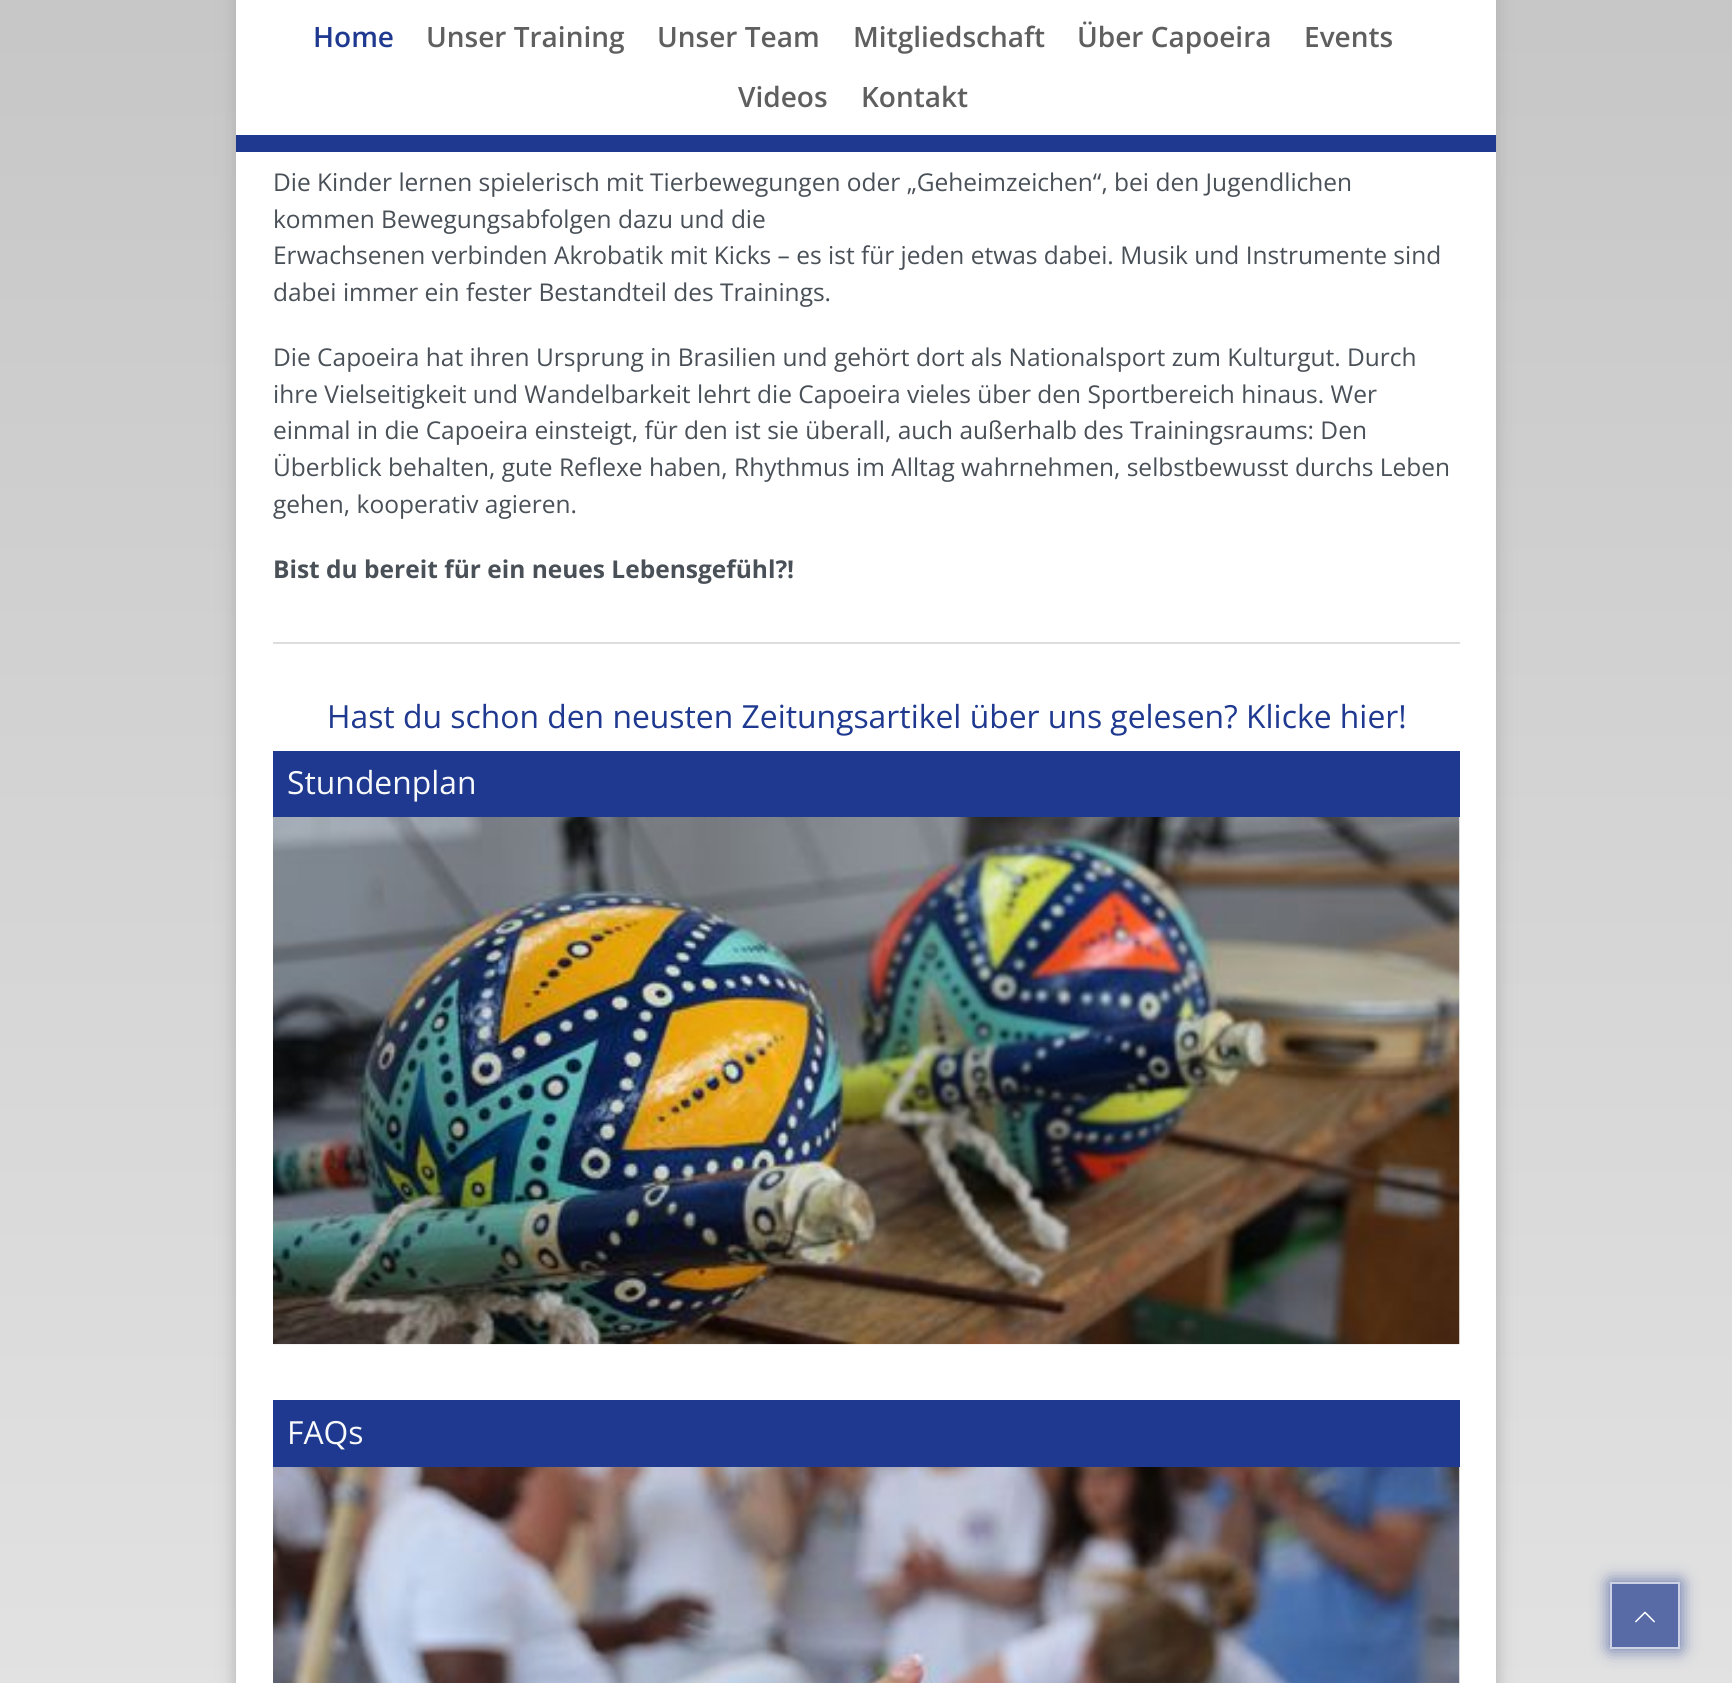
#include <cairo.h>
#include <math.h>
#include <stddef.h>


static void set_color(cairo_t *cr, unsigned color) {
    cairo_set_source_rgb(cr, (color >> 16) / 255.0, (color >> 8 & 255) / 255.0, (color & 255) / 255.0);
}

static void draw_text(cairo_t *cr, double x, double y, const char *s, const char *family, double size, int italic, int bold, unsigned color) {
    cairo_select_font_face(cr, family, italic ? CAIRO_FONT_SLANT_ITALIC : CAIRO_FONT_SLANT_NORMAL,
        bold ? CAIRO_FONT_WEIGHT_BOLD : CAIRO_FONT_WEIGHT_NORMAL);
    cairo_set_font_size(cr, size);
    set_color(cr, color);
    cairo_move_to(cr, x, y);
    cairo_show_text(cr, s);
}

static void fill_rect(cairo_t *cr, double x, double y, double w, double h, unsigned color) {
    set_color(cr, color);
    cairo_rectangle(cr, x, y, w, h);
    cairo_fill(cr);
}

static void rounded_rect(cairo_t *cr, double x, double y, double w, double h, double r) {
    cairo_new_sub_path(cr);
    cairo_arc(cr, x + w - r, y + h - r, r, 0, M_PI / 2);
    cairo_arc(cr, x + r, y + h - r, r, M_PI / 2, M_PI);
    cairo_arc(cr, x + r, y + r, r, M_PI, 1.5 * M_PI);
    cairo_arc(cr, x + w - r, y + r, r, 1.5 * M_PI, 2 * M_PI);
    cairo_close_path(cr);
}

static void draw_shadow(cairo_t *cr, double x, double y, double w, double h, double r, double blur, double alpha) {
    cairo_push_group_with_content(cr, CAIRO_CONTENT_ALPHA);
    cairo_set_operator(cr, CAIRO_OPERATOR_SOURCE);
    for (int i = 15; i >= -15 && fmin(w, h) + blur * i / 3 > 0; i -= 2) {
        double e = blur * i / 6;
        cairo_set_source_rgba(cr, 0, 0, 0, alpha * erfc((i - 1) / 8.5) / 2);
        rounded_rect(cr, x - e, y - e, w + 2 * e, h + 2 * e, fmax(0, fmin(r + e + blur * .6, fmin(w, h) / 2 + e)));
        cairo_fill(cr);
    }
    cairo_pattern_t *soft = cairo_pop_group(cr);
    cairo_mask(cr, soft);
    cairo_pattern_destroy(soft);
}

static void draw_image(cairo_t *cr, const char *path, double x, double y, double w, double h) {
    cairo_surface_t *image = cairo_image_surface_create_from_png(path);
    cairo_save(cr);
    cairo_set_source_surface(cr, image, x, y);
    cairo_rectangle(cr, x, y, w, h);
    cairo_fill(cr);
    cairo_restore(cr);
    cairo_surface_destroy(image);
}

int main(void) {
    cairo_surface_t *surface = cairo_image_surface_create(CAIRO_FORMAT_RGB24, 1732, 1683);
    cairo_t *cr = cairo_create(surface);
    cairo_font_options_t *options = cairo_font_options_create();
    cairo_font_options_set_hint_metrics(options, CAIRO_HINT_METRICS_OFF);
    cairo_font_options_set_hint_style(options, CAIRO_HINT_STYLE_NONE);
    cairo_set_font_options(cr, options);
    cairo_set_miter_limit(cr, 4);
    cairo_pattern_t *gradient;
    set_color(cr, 0xFFFFFF);
    cairo_paint(cr);
    gradient = cairo_pattern_create_linear(866, -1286, 866, 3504);
    cairo_pattern_add_color_stop_rgba(gradient, 0, 0.698, 0.698, 0.698, 1);
    cairo_pattern_add_color_stop_rgba(gradient, 1, 1, 1, 1, 1);
    cairo_set_source(cr, gradient);
    cairo_pattern_destroy(gradient);
    cairo_rectangle(cr, 0, 0, 1732, 1683);
    cairo_fill(cr);
    set_color(cr, 0xAEAEAE);
    draw_shadow(cr, 236, -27, 1260, 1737, 0, 9, 1);
    fill_rect(cr, 236, 0, 1260, 1683, 0xFFFFFF);
    draw_text(cr, 313, 47, "Home", "Open Sans SemiBold", 28, 0, 0, 0x1E398F);
    draw_text(cr, 426, 47, "Unser Training", "Open Sans SemiBold", 28, 0, 0, 0x5F5F5F);
    draw_text(cr, 657, 47, "Unser Team", "Open Sans SemiBold", 28, 0, 0, 0x5F5F5F);
    draw_text(cr, 853, 47, "Mitgliedschaft", "Open Sans SemiBold", 28, 0, 0, 0x5F5F5F);
    draw_text(cr, 1077, 47, "Über Capoeira", "Open Sans SemiBold", 28, 0, 0, 0x5F5F5F);
    draw_text(cr, 1304, 47, "Events", "Open Sans SemiBold", 28, 0, 0, 0x5F5F5F);
    draw_text(cr, 738, 107, "Videos", "Open Sans SemiBold", 28, 0, 0, 0x5F5F5F);
    draw_text(cr, 861, 107, "Kontakt", "Open Sans SemiBold", 28, 0, 0, 0x5F5F5F);
    fill_rect(cr, 236, 135, 1260, 17, 0x1E398F);
    draw_text(cr, 273, 191, "Die Kinder lernen spielerisch mit Tierbewegungen oder „Geheimzeichen“, bei den Jugendlichen", "Open Sans", 24.5, 0, 0, 0x495057);
    draw_text(cr, 273, 228, "kommen Bewegungsabfolgen dazu und die", "Open Sans", 24.5, 0, 0, 0x495057);
    draw_text(cr, 273, 264, "Erwachsenen verbinden Akrobatik mit Kicks – es ist für jeden etwas dabei. Musik und Instrumente sind", "Open Sans", 24.5, 0, 0, 0x495057);
    draw_text(cr, 273, 301, "dabei immer ein fester Bestandteil des Trainings.", "Open Sans", 24.5, 0, 0, 0x495057);
    draw_text(cr, 273, 366, "Die Capoeira hat ihren Ursprung in Brasilien und gehört dort als Nationalsport zum Kulturgut. Durch", "Open Sans", 24.5, 0, 0, 0x495057);
    draw_text(cr, 273, 403, "ihre Vielseitigkeit und Wandelbarkeit lehrt die Capoeira vieles über den Sportbereich hinaus. Wer", "Open Sans", 24.5, 0, 0, 0x495057);
    draw_text(cr, 273, 439, "einmal in die Capoeira einsteigt, für den ist sie überall, auch außerhalb des Trainingsraums: Den", "Open Sans", 24.5, 0, 0, 0x495057);
    draw_text(cr, 273, 476, "Überblick behalten, gute Reflexe haben, Rhythmus im Alltag wahrnehmen, selbstbewusst durchs Leben", "Open Sans", 24.5, 0, 0, 0x495057);
    draw_text(cr, 273, 513, "gehen, kooperativ agieren.", "Open Sans", 24.5, 0, 0, 0x495057);
    draw_text(cr, 273, 578, "Bist du bereit für ein neues Lebensgefühl?!", "Open Sans", 24.5, 0, 1, 0x495057);
    fill_rect(cr, 273, 642, 1187, 2, 0xDDDDDD);
    draw_text(cr, 327, 728, "Hast du schon den neusten Zeitungsartikel über uns gelesen? Klicke hier!", "Open Sans", 31.85, 0, 0, 0x1E398F);
    fill_rect(cr, 273, 751, 1187, 66, 0x1E398F);
    draw_text(cr, 287, 794, "Stundenplan", "Open Sans", 31.85, 0, 0, 0xF8F9FA);
    draw_image(cr, "assets/img1.png", 273, 817, 1187, 528);
    fill_rect(cr, 273, 1400, 1187, 67, 0x1E398F);
    draw_text(cr, 287, 1444, "FAQs", "Open Sans", 31.85, 0, 0, 0xF8F9FA);
    draw_image(cr, "assets/img2.png", 273, 1467, 1187, 216);
    cairo_save(cr);
    cairo_set_fill_rule(cr, CAIRO_FILL_RULE_EVEN_ODD);
    cairo_new_path(cr);
    cairo_move_to(cr, 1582, 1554);
    cairo_line_to(cr, 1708, 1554);
    cairo_line_to(cr, 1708, 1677);
    cairo_line_to(cr, 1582, 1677);
    cairo_close_path(cr);
    cairo_move_to(cr, 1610, 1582);
    cairo_line_to(cr, 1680, 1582);
    cairo_line_to(cr, 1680, 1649);
    cairo_line_to(cr, 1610, 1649);
    cairo_close_path(cr);
    cairo_clip(cr);
    set_color(cr, 0x1E398F);
    draw_shadow(cr, 1610, 1582, 70, 67, 0, 9, 0.7);
    cairo_restore(cr);
    cairo_set_source_rgba(cr, 0.118, 0.224, 0.561, 0.7);
    cairo_rectangle(cr, 1610, 1582, 70, 67);
    cairo_fill(cr);
    cairo_rectangle(cr, 1611, 1583, 68, 65);
    cairo_set_source_rgba(cr, 1, 1, 1, 0.7);
    cairo_stroke(cr);
    draw_image(cr, "assets/img3.png", 1635, 1611, 20, 12);
    cairo_surface_write_to_png(surface, "output.png");
    cairo_font_options_destroy(options);
    cairo_destroy(cr);
    cairo_surface_destroy(surface);
    return 0;
}
